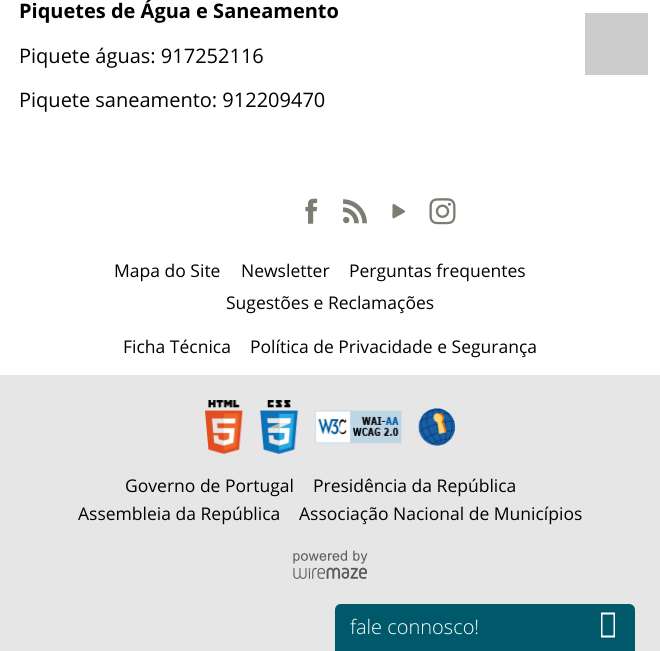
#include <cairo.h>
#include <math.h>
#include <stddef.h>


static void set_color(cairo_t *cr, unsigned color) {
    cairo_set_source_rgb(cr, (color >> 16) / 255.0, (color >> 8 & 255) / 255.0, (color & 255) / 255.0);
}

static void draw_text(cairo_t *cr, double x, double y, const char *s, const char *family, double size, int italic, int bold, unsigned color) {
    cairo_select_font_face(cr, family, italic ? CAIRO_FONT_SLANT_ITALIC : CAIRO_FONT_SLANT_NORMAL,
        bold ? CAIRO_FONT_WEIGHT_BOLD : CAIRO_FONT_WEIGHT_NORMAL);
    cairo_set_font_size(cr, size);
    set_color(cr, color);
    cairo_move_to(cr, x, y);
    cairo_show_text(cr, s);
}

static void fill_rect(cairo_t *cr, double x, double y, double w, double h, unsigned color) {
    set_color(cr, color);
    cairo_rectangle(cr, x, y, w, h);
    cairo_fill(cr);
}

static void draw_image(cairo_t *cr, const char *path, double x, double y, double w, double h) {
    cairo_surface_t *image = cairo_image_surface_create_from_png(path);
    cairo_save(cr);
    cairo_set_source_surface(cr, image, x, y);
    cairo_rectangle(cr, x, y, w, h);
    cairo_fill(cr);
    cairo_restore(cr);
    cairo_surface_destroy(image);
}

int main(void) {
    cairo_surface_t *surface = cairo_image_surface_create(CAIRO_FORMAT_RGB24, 660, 651);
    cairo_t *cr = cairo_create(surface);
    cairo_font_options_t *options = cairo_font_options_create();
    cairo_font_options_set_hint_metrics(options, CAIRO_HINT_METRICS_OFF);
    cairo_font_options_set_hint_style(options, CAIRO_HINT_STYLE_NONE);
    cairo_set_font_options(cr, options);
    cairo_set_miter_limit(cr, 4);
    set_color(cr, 0xFFFFFF);
    cairo_paint(cr);
    draw_text(cr, 19, 18, "Piquetes de Água e Saneamento", "Open Sans", 20, 0, 1, 0x000000);
    draw_text(cr, 19, 63, "Piquete águas: 917252116", "Open Sans", 20, 0, 0, 0x000000);
    draw_text(cr, 19, 107, "Piquete saneamento: 912209470", "Open Sans", 20, 0, 0, 0x000000);
    draw_image(cr, "assets/img1.png", 305, 198, 13, 26);
    draw_image(cr, "assets/img2.png", 343, 199, 24, 25);
    set_color(cr, 0x7A7D71);
    cairo_new_path(cr);
    cairo_move_to(cr, 394.5, 218);
    cairo_curve_to(cr, 391.5, 220, 392.5, 214.5, 392.5, 211);
    cairo_line_to(cr, 392.5, 207.5);
    cairo_curve_to(cr, 392.5, 206.5, 392, 203.5, 394, 204);
    cairo_line_to(cr, 404.5, 210.5);
    cairo_curve_to(cr, 405.5, 211, 405, 212, 404.5, 212.5);
    cairo_close_path(cr);
    cairo_fill(cr);
    draw_image(cr, "assets/img3.png", 429, 198, 27, 27);
    draw_text(cr, 114, 277, "Mapa do Site", "Open Sans", 17.5, 0, 0, 0x000000);
    draw_text(cr, 241, 277, "Newsletter", "Open Sans", 17.5, 0, 0, 0x000000);
    draw_text(cr, 349, 277, "Perguntas frequentes", "Open Sans", 17.5, 0, 0, 0x000000);
    draw_text(cr, 226, 309, "Sugestões e Reclamações", "Open Sans", 17.5, 0, 0, 0x000000);
    draw_text(cr, 123, 353, "Ficha Técnica", "Open Sans", 17.5, 0, 0, 0x000000);
    draw_text(cr, 250, 353, "Política de Privacidade e Segurança", "Open Sans", 17.5, 0, 0, 0x000000);
    fill_rect(cr, 0, 375, 660, 276, 0xE6E6E6);
    draw_image(cr, "assets/img4.png", 205, 400, 250, 54);
    draw_text(cr, 125, 492, "Governo de Portugal", "Open Sans", 17.5, 0, 0, 0x000000);
    draw_text(cr, 313, 492, "Presidência da República", "Open Sans", 17.5, 0, 0, 0x000000);
    draw_text(cr, 78, 520, "Assembleia da República", "Open Sans", 17.5, 0, 0, 0x000000);
    draw_text(cr, 299, 520, "Associação Nacional de Municípios", "Open Sans", 17.5, 0, 0, 0x000000);
    draw_image(cr, "assets/img5.png", 293, 550, 75, 29);
    fill_rect(cr, 585, 13, 63, 62, 0xCCCCCC);
    set_color(cr, 0x00596B);
    cairo_new_path(cr);
    cairo_move_to(cr, 341, 604);
    cairo_line_to(cr, 629, 604);
    cairo_curve_to(cr, 632.5, 604, 635, 606.5, 635, 610);
    cairo_line_to(cr, 635, 651);
    cairo_line_to(cr, 335, 651);
    cairo_line_to(cr, 335, 610);
    cairo_curve_to(cr, 335, 606.5, 337.5, 604, 341, 604);
    cairo_close_path(cr);
    cairo_fill(cr);
    draw_text(cr, 350, 634, "fale connosco!", "Open Sans Light", 20, 0, 0, 0xFFFFFF);
    cairo_new_path(cr);
    cairo_move_to(cr, 601, 637.5);
    cairo_line_to(cr, 601, 612.5);
    cairo_line_to(cr, 615, 612.5);
    cairo_line_to(cr, 615, 637.5);
    cairo_close_path(cr);
    cairo_move_to(cr, 602.5, 635.5);
    cairo_line_to(cr, 613.5, 635.5);
    cairo_line_to(cr, 613.5, 614.5);
    cairo_line_to(cr, 602.5, 614.5);
    cairo_close_path(cr);
    cairo_fill(cr);
    cairo_surface_write_to_png(surface, "output.png");
    cairo_font_options_destroy(options);
    cairo_destroy(cr);
    cairo_surface_destroy(surface);
    return 0;
}
